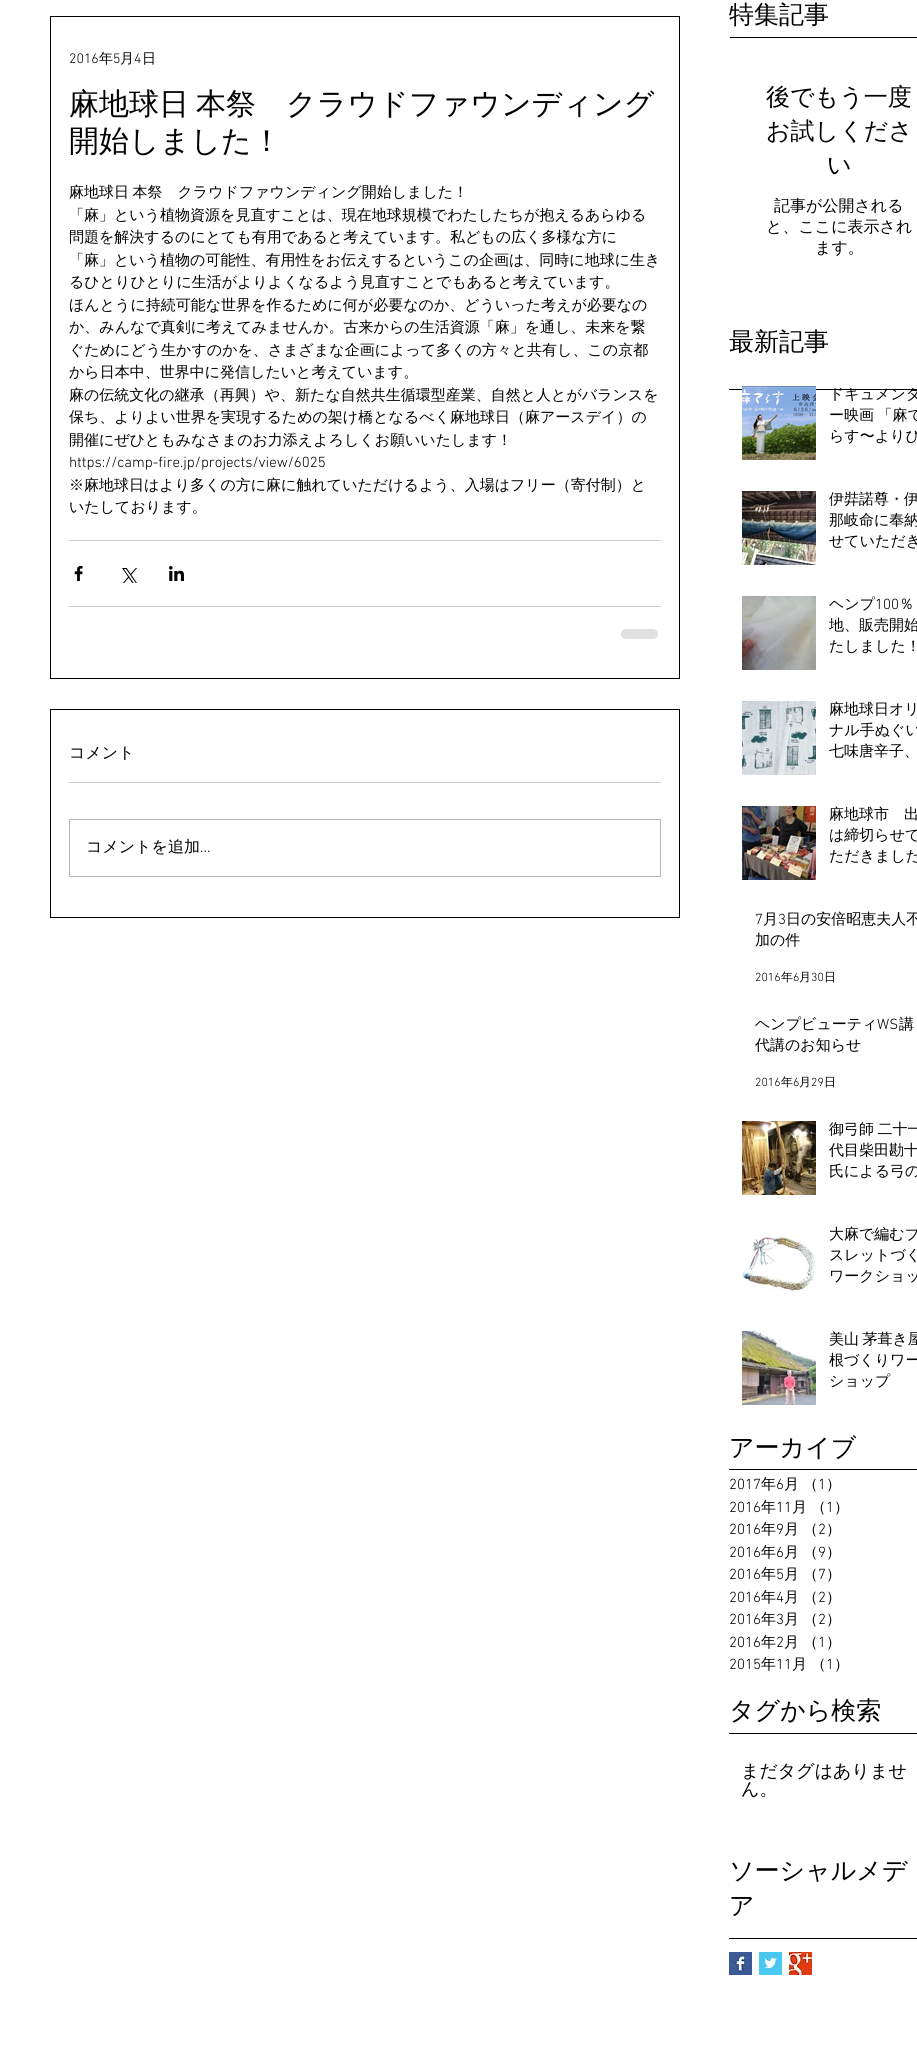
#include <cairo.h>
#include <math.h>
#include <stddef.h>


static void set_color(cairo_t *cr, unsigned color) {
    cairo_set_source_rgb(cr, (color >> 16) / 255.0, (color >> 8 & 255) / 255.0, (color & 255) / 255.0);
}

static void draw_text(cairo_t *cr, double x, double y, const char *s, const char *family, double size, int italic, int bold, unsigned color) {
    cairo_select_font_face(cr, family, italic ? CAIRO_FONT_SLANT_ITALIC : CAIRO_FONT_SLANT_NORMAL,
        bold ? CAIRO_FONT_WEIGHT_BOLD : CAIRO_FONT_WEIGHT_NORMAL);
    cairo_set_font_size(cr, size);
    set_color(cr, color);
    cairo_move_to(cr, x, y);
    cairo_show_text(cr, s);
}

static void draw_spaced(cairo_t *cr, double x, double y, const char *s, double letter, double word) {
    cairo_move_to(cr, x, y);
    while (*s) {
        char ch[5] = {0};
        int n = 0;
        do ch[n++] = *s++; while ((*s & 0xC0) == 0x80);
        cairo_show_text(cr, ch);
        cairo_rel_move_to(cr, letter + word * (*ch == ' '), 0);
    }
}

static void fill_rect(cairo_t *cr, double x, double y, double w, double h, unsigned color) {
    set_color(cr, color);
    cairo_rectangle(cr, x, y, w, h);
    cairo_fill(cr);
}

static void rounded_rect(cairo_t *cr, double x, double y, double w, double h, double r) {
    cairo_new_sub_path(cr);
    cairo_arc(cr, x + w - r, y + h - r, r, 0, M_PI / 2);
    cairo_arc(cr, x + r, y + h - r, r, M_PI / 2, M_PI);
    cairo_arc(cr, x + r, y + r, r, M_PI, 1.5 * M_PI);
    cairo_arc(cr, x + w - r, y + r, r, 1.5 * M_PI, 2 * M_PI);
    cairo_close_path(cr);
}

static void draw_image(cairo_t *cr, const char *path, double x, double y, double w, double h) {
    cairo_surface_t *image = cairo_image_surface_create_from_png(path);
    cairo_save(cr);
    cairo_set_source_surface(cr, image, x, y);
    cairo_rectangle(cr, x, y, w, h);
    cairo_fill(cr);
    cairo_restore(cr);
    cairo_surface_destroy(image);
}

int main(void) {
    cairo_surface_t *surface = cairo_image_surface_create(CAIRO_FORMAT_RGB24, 917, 2049);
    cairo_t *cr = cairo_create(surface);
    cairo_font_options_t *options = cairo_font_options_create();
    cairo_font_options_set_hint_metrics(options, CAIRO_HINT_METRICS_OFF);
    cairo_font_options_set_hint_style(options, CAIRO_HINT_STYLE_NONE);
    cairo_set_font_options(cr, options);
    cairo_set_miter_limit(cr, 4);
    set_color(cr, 0xFFFFFF);
    cairo_paint(cr);
    draw_text(cr, 729, 23, "特集記事", "WenQuanYi Zen Hei Medium", 25, 0, 0, 0x000000);
    fill_rect(cr, 730, 37, 187, 1, 0x000000);
    cairo_rectangle(cr, 50.5, 16.5, 629, 662);
    cairo_set_line_width(cr, 1);
    cairo_stroke(cr);
    draw_text(cr, 69, 63, "2016", "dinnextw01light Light", 14, 0, 0, 0x000000);
    draw_text(cr, 99, 63, "年", "WenQuanYi Zen Hei Medium", 14, 0, 0, 0x000000);
    draw_text(cr, 113, 63, "5", "dinnextw01light Light", 14, 0, 0, 0x000000);
    draw_text(cr, 120, 63, "月", "WenQuanYi Zen Hei Medium", 14, 0, 0, 0x000000);
    draw_text(cr, 134, 63, "4", "dinnextw01light Light", 14, 0, 0, 0x000000);
    draw_text(cr, 142, 63, "日", "WenQuanYi Zen Hei Medium", 14, 0, 0, 0x000000);
    cairo_set_font_size(cr, 30);
    draw_spaced(cr, 69, 114, "麻地球日 本祭　クラウドファウンディング", 0, -2);
    draw_text(cr, 69, 151, "開始しました！", "WenQuanYi Zen Hei Medium", 30, 0, 0, 0x000000);
    cairo_set_font_size(cr, 15);
    draw_spaced(cr, 69, 197, "麻地球日 本祭　クラウドファウンディング開始しました！", 0, -1);
    draw_text(cr, 69, 220, "「麻」という植物資源を見直すことは、現在地球規模でわたしたちが抱えるあらゆる", "WenQuanYi Zen Hei Medium", 15, 0, 0, 0x000000);
    draw_text(cr, 69, 242, "問題を解決するのにとても有用であると考えています。私どもの広く多様な方に", "WenQuanYi Zen Hei Medium", 15, 0, 0, 0x000000);
    draw_text(cr, 69, 265, "「麻」という植物の可能性、有用性をお伝えするというこの企画は、同時に地球に生き", "WenQuanYi Zen Hei Medium", 15, 0, 0, 0x000000);
    draw_text(cr, 69, 287, "るひとりひとりに生活がよりよくなるよう見直すことでもあると考えています。", "WenQuanYi Zen Hei Medium", 15, 0, 0, 0x000000);
    draw_text(cr, 69, 310, "ほんとうに持続可能な世界を作るために何が必要なのか、どういった考えが必要なの", "WenQuanYi Zen Hei Medium", 15, 0, 0, 0x000000);
    draw_text(cr, 69, 332, "か、みんなで真剣に考えてみませんか。古来からの生活資源「麻」を通し、未来を繋", "WenQuanYi Zen Hei Medium", 15, 0, 0, 0x000000);
    draw_text(cr, 69, 355, "ぐためにどう生かすのかを、さまざまな企画によって多くの方々と共有し、この京都", "WenQuanYi Zen Hei Medium", 15, 0, 0, 0x000000);
    draw_text(cr, 69, 377, "から日本中、世界中に発信したいと考えています。", "WenQuanYi Zen Hei Medium", 15, 0, 0, 0x000000);
    draw_text(cr, 69, 400, "麻の伝統文化の継承（再興）や、新たな自然共生循環型産業、自然と人とがバランスを", "WenQuanYi Zen Hei Medium", 15, 0, 0, 0x000000);
    draw_text(cr, 69, 422, "保ち、よりよい世界を実現するための架け橋となるべく麻地球日（麻アースデイ）の", "WenQuanYi Zen Hei Medium", 15, 0, 0, 0x000000);
    draw_text(cr, 69, 445, "開催にぜひともみなさまのお力添えよろしくお願いいたします！", "WenQuanYi Zen Hei Medium", 15, 0, 0, 0x000000);
    draw_text(cr, 69, 467, "https://camp-fire.jp/projects/view/6025", "dinnextw01light Light", 15, 0, 0, 0x000000);
    draw_text(cr, 69, 490, "※麻地球日はより多くの方に麻に触れていただけるよう、入場はフリー（寄付制）と", "WenQuanYi Zen Hei Medium", 15, 0, 0, 0x000000);
    draw_text(cr, 69, 512, "いたしております。", "WenQuanYi Zen Hei Medium", 15, 0, 0, 0x000000);
    fill_rect(cr, 69, 540, 592, 1, 0xCCCCCC);
    draw_image(cr, "assets/img1.png", 74, 566, 9, 15);
    draw_image(cr, "assets/img2.png", 122, 568, 15, 15);
    draw_image(cr, "assets/img3.png", 169, 566, 15, 15);
    fill_rect(cr, 69, 606, 592, 1, 0xCCCCCC);
    set_color(cr, 0xE0E0E0);
    rounded_rect(cr, 621, 629, 37, 10, 5);
    cairo_fill(cr);
    cairo_rectangle(cr, 50.5, 709.5, 629, 208);
    set_color(cr, 0x000000);
    cairo_stroke(cr);
    draw_text(cr, 69, 758, "コメント", "WenQuanYi Zen Hei Medium", 16, 0, 0, 0x000000);
    fill_rect(cr, 69, 782, 592, 1, 0xCCCCCC);
    cairo_rectangle(cr, 69.5, 819.5, 591, 57);
    set_color(cr, 0xB3B3B3);
    cairo_stroke(cr);
    draw_text(cr, 86, 852, "コメントを追加", "WenQuanYi Zen Hei Medium", 16, 0, 0, 0x000000);
    draw_text(cr, 200, 852, "…", "dinnextw01light Light", 16, 0, 0, 0x000000);
    draw_text(cr, 766, 105, "後でもう一度", "WenQuanYi Zen Hei Medium", 24, 0, 0, 0x000000);
    draw_text(cr, 766, 139, "お試しくださ", "WenQuanYi Zen Hei Medium", 24, 0, 0, 0x000000);
    draw_text(cr, 827, 173, "い", "WenQuanYi Zen Hei Medium", 24, 0, 0, 0x000000);
    draw_text(cr, 774, 211, "記事が公開される", "WenQuanYi Zen Hei Medium", 16, 0, 0, 0x000000);
    draw_text(cr, 766, 232, "と、ここに表示され", "WenQuanYi Zen Hei Medium", 16, 0, 0, 0x000000);
    draw_text(cr, 815, 253, "ます。", "WenQuanYi Zen Hei Medium", 16, 0, 0, 0x000000);
    draw_text(cr, 729, 350, "最新記事", "WenQuanYi Zen Hei Medium", 25, 0, 0, 0x000000);
    fill_rect(cr, 729, 389, 188, 1, 0x000000);
    draw_image(cr, "assets/img4.png", 742, 386, 74, 74);
    draw_text(cr, 829, 399, "ドキュメンタ", "WenQuanYi Zen Hei Medium", 15, 0, 0, 0x000000);
    draw_spaced(cr, 829, 420, "ー映画 「麻て", 0, -1);
    draw_text(cr, 829, 441, "らす〜よりひ", "WenQuanYi Zen Hei Medium", 15, 0, 0, 0x000000);
    draw_image(cr, "assets/img5.png", 742, 491, 74, 74);
    draw_text(cr, 829, 504, "伊弉諾尊・伊", "WenQuanYi Zen Hei Medium", 15, 0, 0, 0x000000);
    draw_text(cr, 829, 525, "那岐命に奉納", "WenQuanYi Zen Hei Medium", 15, 0, 0, 0x000000);
    draw_text(cr, 829, 546, "せていただき", "WenQuanYi Zen Hei Medium", 15, 0, 0, 0x000000);
    draw_image(cr, "assets/img6.png", 742, 596, 74, 74);
    draw_text(cr, 829, 609, "ヘンプ", "WenQuanYi Zen Hei Medium", 15, 0, 0, 0x000000);
    draw_text(cr, 875, 609, "100", "dinnextw01light Light", 15, 0, 0, 0x000000);
    draw_text(cr, 899, 609, "％", "WenQuanYi Zen Hei Medium", 15, 0, 0, 0x000000);
    draw_text(cr, 829, 630, "地、販売開始", "WenQuanYi Zen Hei Medium", 15, 0, 0, 0x000000);
    draw_text(cr, 829, 651, "たしました！", "WenQuanYi Zen Hei Medium", 15, 0, 0, 0x000000);
    draw_image(cr, "assets/img7.png", 742, 701, 74, 74);
    draw_text(cr, 829, 714, "麻地球日オリ", "WenQuanYi Zen Hei Medium", 15, 0, 0, 0x000000);
    draw_text(cr, 829, 735, "ナル手ぬぐい", "WenQuanYi Zen Hei Medium", 15, 0, 0, 0x000000);
    draw_text(cr, 829, 756, "七味唐辛子、", "WenQuanYi Zen Hei Medium", 15, 0, 0, 0x000000);
    draw_image(cr, "assets/img8.png", 742, 806, 74, 74);
    draw_text(cr, 829, 819, "麻地球市　出", "WenQuanYi Zen Hei Medium", 15, 0, 0, 0x000000);
    draw_text(cr, 829, 840, "は締切らせて", "WenQuanYi Zen Hei Medium", 15, 0, 0, 0x000000);
    draw_text(cr, 829, 861, "ただきました", "WenQuanYi Zen Hei Medium", 15, 0, 0, 0x000000);
    draw_text(cr, 755, 924, "7", "dinnextw01light Light", 15, 0, 0, 0x000000);
    draw_text(cr, 763, 924, "月", "WenQuanYi Zen Hei Medium", 15, 0, 0, 0x000000);
    draw_text(cr, 778, 924, "3", "dinnextw01light Light", 15, 0, 0, 0x000000);
    draw_text(cr, 786, 924, "日の安倍昭恵夫人不", "WenQuanYi Zen Hei Medium", 15, 0, 0, 0x000000);
    draw_text(cr, 755, 945, "加の件", "WenQuanYi Zen Hei Medium", 15, 0, 0, 0x000000);
    draw_text(cr, 755, 981, "2016", "dinnextw01light Light", 12, 0, 0, 0x000000);
    draw_text(cr, 781, 981, "年", "WenQuanYi Zen Hei Medium", 12, 0, 0, 0x000000);
    draw_text(cr, 793, 981, "6", "dinnextw01light Light", 12, 0, 0, 0x000000);
    draw_text(cr, 799, 981, "月", "WenQuanYi Zen Hei Medium", 12, 0, 0, 0x000000);
    draw_text(cr, 811, 981, "30", "dinnextw01light Light", 12, 0, 0, 0x000000);
    draw_text(cr, 824, 981, "日", "WenQuanYi Zen Hei Medium", 12, 0, 0, 0x000000);
    draw_text(cr, 755, 1029, "ヘンプビューティ", "WenQuanYi Zen Hei Medium", 15, 0, 0, 0x000000);
    draw_text(cr, 877, 1029, "WS", "dinnextw01light Light", 15, 0, 0, 0x000000);
    draw_text(cr, 899, 1029, "講", "WenQuanYi Zen Hei Medium", 15, 0, 0, 0x000000);
    draw_text(cr, 755, 1050, "代講のお知らせ", "WenQuanYi Zen Hei Medium", 15, 0, 0, 0x000000);
    draw_text(cr, 755, 1086, "2016", "dinnextw01light Light", 12, 0, 0, 0x000000);
    draw_text(cr, 781, 1086, "年", "WenQuanYi Zen Hei Medium", 12, 0, 0, 0x000000);
    draw_text(cr, 793, 1086, "6", "dinnextw01light Light", 12, 0, 0, 0x000000);
    draw_text(cr, 799, 1086, "月", "WenQuanYi Zen Hei Medium", 12, 0, 0, 0x000000);
    draw_text(cr, 811, 1086, "29", "dinnextw01light Light", 12, 0, 0, 0x000000);
    draw_text(cr, 824, 1086, "日", "WenQuanYi Zen Hei Medium", 12, 0, 0, 0x000000);
    draw_image(cr, "assets/img9.png", 742, 1121, 74, 74);
    cairo_set_font_size(cr, 15);
    draw_spaced(cr, 829, 1134, "御弓師 二十一", 0, -1);
    draw_text(cr, 829, 1155, "代目柴田勘十", "WenQuanYi Zen Hei Medium", 15, 0, 0, 0x000000);
    draw_text(cr, 829, 1176, "氏による弓の", "WenQuanYi Zen Hei Medium", 15, 0, 0, 0x000000);
    draw_image(cr, "assets/img10.png", 742, 1226, 74, 74);
    draw_text(cr, 829, 1239, "大麻で編むブ", "WenQuanYi Zen Hei Medium", 15, 0, 0, 0x000000);
    draw_text(cr, 829, 1260, "スレットづく", "WenQuanYi Zen Hei Medium", 15, 0, 0, 0x000000);
    draw_text(cr, 829, 1281, "ワークショッ", "WenQuanYi Zen Hei Medium", 15, 0, 0, 0x000000);
    draw_image(cr, "assets/img11.png", 742, 1331, 74, 74);
    draw_spaced(cr, 829, 1344, "美山 茅葺き屋", 0, -1);
    draw_text(cr, 829, 1365, "根づくりワー", "WenQuanYi Zen Hei Medium", 15, 0, 0, 0x000000);
    draw_text(cr, 829, 1386, "ショップ", "WenQuanYi Zen Hei Medium", 15, 0, 0, 0x000000);
    draw_text(cr, 729, 1456, "アーカイブ", "WenQuanYi Zen Hei Medium", 25, 0, 0, 0x000000);
    fill_rect(cr, 729, 1469, 188, 1, 0x000000);
    draw_text(cr, 729, 1489, "2017", "dinnextw01light Light", 15, 0, 0, 0x000000);
    draw_text(cr, 761, 1489, "年", "WenQuanYi Zen Hei Medium", 15, 0, 0, 0x000000);
    draw_text(cr, 776, 1489, "6", "dinnextw01light Light", 15, 0, 0, 0x000000);
    draw_text(cr, 784, 1489, "月", "WenQuanYi Zen Hei Medium", 15, 0, 0, 0x000000);
    draw_text(cr, 803, 1489, "（", "WenQuanYi Zen Hei Medium", 15, 0, 0, 0x000000);
    draw_text(cr, 818, 1489, "1", "dinnextw01light Light", 15, 0, 0, 0x000000);
    draw_text(cr, 826, 1489, "）", "WenQuanYi Zen Hei Medium", 15, 0, 0, 0x000000);
    draw_text(cr, 729, 1512, "2016", "dinnextw01light Light", 15, 0, 0, 0x000000);
    draw_text(cr, 761, 1512, "年", "WenQuanYi Zen Hei Medium", 15, 0, 0, 0x000000);
    draw_text(cr, 776, 1512, "11", "dinnextw01light Light", 15, 0, 0, 0x000000);
    draw_text(cr, 792, 1512, "月", "WenQuanYi Zen Hei Medium", 15, 0, 0, 0x000000);
    draw_text(cr, 811, 1512, "（", "WenQuanYi Zen Hei Medium", 15, 0, 0, 0x000000);
    draw_text(cr, 826, 1512, "1", "dinnextw01light Light", 15, 0, 0, 0x000000);
    draw_text(cr, 834, 1512, "）", "WenQuanYi Zen Hei Medium", 15, 0, 0, 0x000000);
    draw_text(cr, 729, 1534, "2016", "dinnextw01light Light", 15, 0, 0, 0x000000);
    draw_text(cr, 761, 1534, "年", "WenQuanYi Zen Hei Medium", 15, 0, 0, 0x000000);
    draw_text(cr, 776, 1534, "9", "dinnextw01light Light", 15, 0, 0, 0x000000);
    draw_text(cr, 784, 1534, "月", "WenQuanYi Zen Hei Medium", 15, 0, 0, 0x000000);
    draw_text(cr, 803, 1534, "（", "WenQuanYi Zen Hei Medium", 15, 0, 0, 0x000000);
    draw_text(cr, 818, 1534, "2", "dinnextw01light Light", 15, 0, 0, 0x000000);
    draw_text(cr, 826, 1534, "）", "WenQuanYi Zen Hei Medium", 15, 0, 0, 0x000000);
    draw_text(cr, 729, 1557, "2016", "dinnextw01light Light", 15, 0, 0, 0x000000);
    draw_text(cr, 761, 1557, "年", "WenQuanYi Zen Hei Medium", 15, 0, 0, 0x000000);
    draw_text(cr, 776, 1557, "6", "dinnextw01light Light", 15, 0, 0, 0x000000);
    draw_text(cr, 784, 1557, "月", "WenQuanYi Zen Hei Medium", 15, 0, 0, 0x000000);
    draw_text(cr, 803, 1557, "（", "WenQuanYi Zen Hei Medium", 15, 0, 0, 0x000000);
    draw_text(cr, 818, 1557, "9", "dinnextw01light Light", 15, 0, 0, 0x000000);
    draw_text(cr, 826, 1557, "）", "WenQuanYi Zen Hei Medium", 15, 0, 0, 0x000000);
    draw_text(cr, 729, 1579, "2016", "dinnextw01light Light", 15, 0, 0, 0x000000);
    draw_text(cr, 761, 1579, "年", "WenQuanYi Zen Hei Medium", 15, 0, 0, 0x000000);
    draw_text(cr, 776, 1579, "5", "dinnextw01light Light", 15, 0, 0, 0x000000);
    draw_text(cr, 784, 1579, "月", "WenQuanYi Zen Hei Medium", 15, 0, 0, 0x000000);
    draw_text(cr, 803, 1579, "（", "WenQuanYi Zen Hei Medium", 15, 0, 0, 0x000000);
    draw_text(cr, 818, 1579, "7", "dinnextw01light Light", 15, 0, 0, 0x000000);
    draw_text(cr, 826, 1579, "）", "WenQuanYi Zen Hei Medium", 15, 0, 0, 0x000000);
    draw_text(cr, 729, 1602, "2016", "dinnextw01light Light", 15, 0, 0, 0x000000);
    draw_text(cr, 761, 1602, "年", "WenQuanYi Zen Hei Medium", 15, 0, 0, 0x000000);
    draw_text(cr, 776, 1602, "4", "dinnextw01light Light", 15, 0, 0, 0x000000);
    draw_text(cr, 784, 1602, "月", "WenQuanYi Zen Hei Medium", 15, 0, 0, 0x000000);
    draw_text(cr, 803, 1602, "（", "WenQuanYi Zen Hei Medium", 15, 0, 0, 0x000000);
    draw_text(cr, 818, 1602, "2", "dinnextw01light Light", 15, 0, 0, 0x000000);
    draw_text(cr, 826, 1602, "）", "WenQuanYi Zen Hei Medium", 15, 0, 0, 0x000000);
    draw_text(cr, 729, 1624, "2016", "dinnextw01light Light", 15, 0, 0, 0x000000);
    draw_text(cr, 761, 1624, "年", "WenQuanYi Zen Hei Medium", 15, 0, 0, 0x000000);
    draw_text(cr, 776, 1624, "3", "dinnextw01light Light", 15, 0, 0, 0x000000);
    draw_text(cr, 784, 1624, "月", "WenQuanYi Zen Hei Medium", 15, 0, 0, 0x000000);
    draw_text(cr, 803, 1624, "（", "WenQuanYi Zen Hei Medium", 15, 0, 0, 0x000000);
    draw_text(cr, 818, 1624, "2", "dinnextw01light Light", 15, 0, 0, 0x000000);
    draw_text(cr, 826, 1624, "）", "WenQuanYi Zen Hei Medium", 15, 0, 0, 0x000000);
    draw_text(cr, 729, 1647, "2016", "dinnextw01light Light", 15, 0, 0, 0x000000);
    draw_text(cr, 761, 1647, "年", "WenQuanYi Zen Hei Medium", 15, 0, 0, 0x000000);
    draw_text(cr, 776, 1647, "2", "dinnextw01light Light", 15, 0, 0, 0x000000);
    draw_text(cr, 784, 1647, "月", "WenQuanYi Zen Hei Medium", 15, 0, 0, 0x000000);
    draw_text(cr, 803, 1647, "（", "WenQuanYi Zen Hei Medium", 15, 0, 0, 0x000000);
    draw_text(cr, 818, 1647, "1", "dinnextw01light Light", 15, 0, 0, 0x000000);
    draw_text(cr, 826, 1647, "）", "WenQuanYi Zen Hei Medium", 15, 0, 0, 0x000000);
    draw_text(cr, 729, 1669, "2015", "dinnextw01light Light", 15, 0, 0, 0x000000);
    draw_text(cr, 761, 1669, "年", "WenQuanYi Zen Hei Medium", 15, 0, 0, 0x000000);
    draw_text(cr, 776, 1669, "11", "dinnextw01light Light", 15, 0, 0, 0x000000);
    draw_text(cr, 792, 1669, "月", "WenQuanYi Zen Hei Medium", 15, 0, 0, 0x000000);
    draw_text(cr, 811, 1669, "（", "WenQuanYi Zen Hei Medium", 15, 0, 0, 0x000000);
    draw_text(cr, 826, 1669, "1", "dinnextw01light Light", 15, 0, 0, 0x000000);
    draw_text(cr, 834, 1669, "）", "WenQuanYi Zen Hei Medium", 15, 0, 0, 0x000000);
    draw_text(cr, 729, 1719, "タグから検索", "WenQuanYi Zen Hei Medium", 25, 0, 0, 0x000000);
    fill_rect(cr, 729, 1733, 188, 1, 0x000000);
    draw_text(cr, 741, 1777, "まだタグはありませ", "WenQuanYi Zen Hei Medium", 18, 0, 0, 0x000000);
    draw_text(cr, 741, 1795, "ん。", "WenQuanYi Zen Hei Medium", 18, 0, 0, 0x000000);
    draw_text(cr, 729, 1879, "ソーシャルメデ", "WenQuanYi Zen Hei Medium", 25, 0, 0, 0x000000);
    draw_text(cr, 729, 1914, "ア", "WenQuanYi Zen Hei Medium", 25, 0, 0, 0x000000);
    fill_rect(cr, 729, 1938, 188, 1, 0x000000);
    draw_image(cr, "assets/img12.png", 729, 1952, 23, 23);
    draw_image(cr, "assets/img13.png", 759, 1952, 23, 23);
    draw_image(cr, "assets/img14.png", 789, 1952, 23, 23);
    cairo_surface_write_to_png(surface, "output.png");
    cairo_font_options_destroy(options);
    cairo_destroy(cr);
    cairo_surface_destroy(surface);
    return 0;
}
